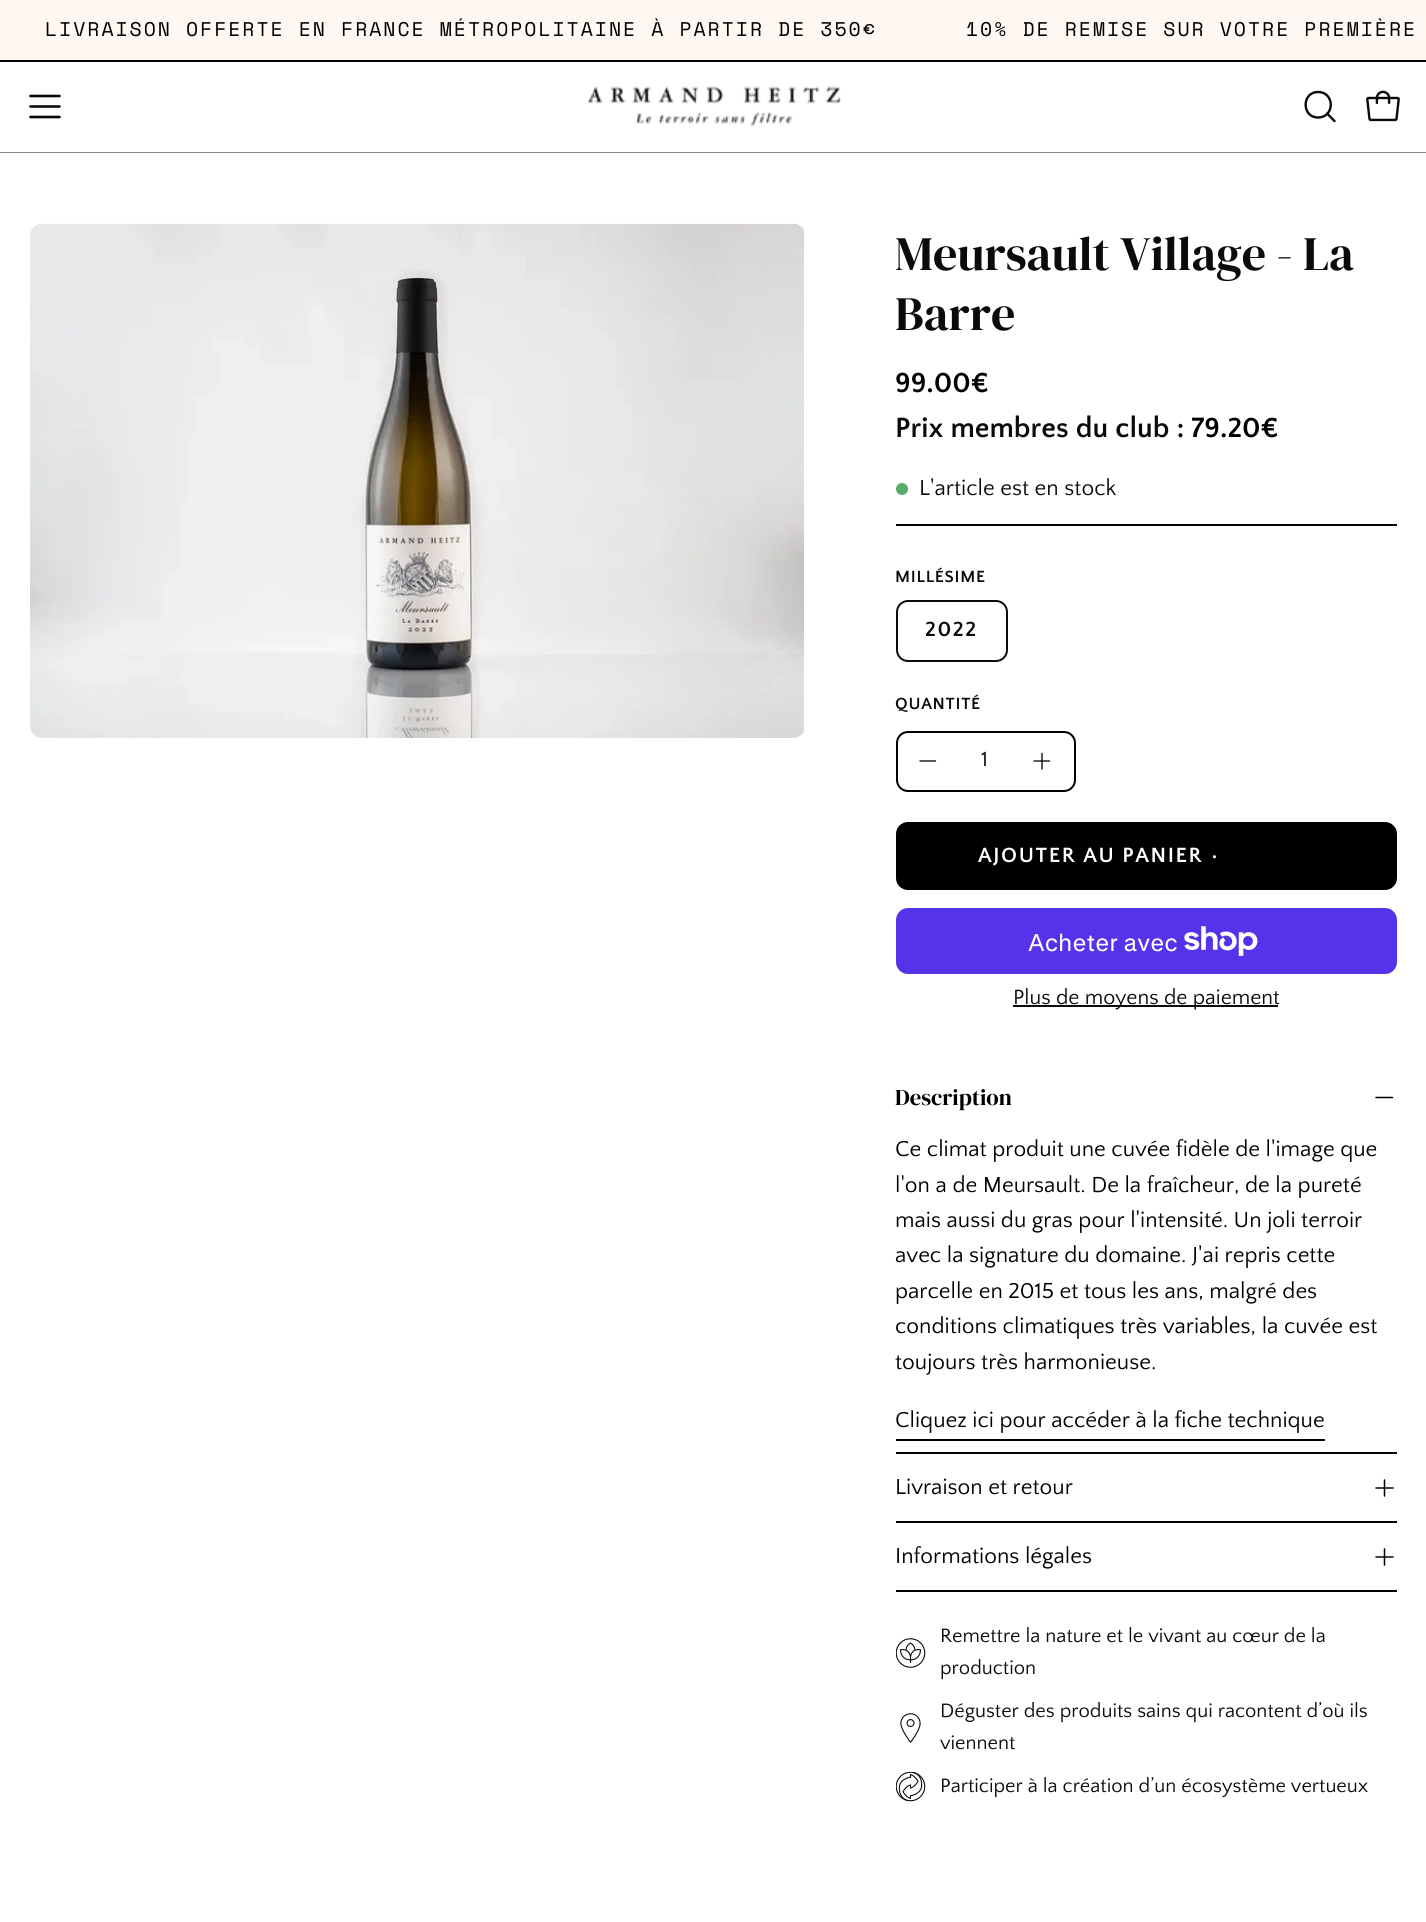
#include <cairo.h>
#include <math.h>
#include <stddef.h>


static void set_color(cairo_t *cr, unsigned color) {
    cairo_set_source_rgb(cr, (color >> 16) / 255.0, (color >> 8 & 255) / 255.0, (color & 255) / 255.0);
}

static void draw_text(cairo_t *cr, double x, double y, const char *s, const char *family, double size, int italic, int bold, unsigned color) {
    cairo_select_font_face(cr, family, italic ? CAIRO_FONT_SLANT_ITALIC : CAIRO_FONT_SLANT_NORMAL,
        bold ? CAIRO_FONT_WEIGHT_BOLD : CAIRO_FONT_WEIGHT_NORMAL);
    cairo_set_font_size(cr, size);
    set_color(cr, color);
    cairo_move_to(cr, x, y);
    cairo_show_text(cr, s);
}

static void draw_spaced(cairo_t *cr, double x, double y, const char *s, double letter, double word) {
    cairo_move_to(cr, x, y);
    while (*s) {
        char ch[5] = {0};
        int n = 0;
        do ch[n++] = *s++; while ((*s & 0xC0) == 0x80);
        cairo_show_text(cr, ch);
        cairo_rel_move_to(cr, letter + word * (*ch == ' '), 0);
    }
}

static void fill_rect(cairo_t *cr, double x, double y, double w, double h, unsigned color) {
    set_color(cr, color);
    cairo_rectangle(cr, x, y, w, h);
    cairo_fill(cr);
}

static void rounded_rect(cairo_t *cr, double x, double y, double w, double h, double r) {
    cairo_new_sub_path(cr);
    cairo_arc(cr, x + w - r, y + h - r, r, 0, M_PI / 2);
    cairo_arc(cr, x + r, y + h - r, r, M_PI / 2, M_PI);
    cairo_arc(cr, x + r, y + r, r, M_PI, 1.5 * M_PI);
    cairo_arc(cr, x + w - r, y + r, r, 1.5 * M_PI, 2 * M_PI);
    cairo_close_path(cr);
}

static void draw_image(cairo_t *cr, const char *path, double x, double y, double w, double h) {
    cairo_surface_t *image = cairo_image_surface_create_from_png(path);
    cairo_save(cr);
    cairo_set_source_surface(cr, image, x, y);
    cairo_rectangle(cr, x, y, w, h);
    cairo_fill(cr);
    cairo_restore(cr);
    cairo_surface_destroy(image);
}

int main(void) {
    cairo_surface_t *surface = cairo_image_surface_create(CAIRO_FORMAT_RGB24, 1426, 1922);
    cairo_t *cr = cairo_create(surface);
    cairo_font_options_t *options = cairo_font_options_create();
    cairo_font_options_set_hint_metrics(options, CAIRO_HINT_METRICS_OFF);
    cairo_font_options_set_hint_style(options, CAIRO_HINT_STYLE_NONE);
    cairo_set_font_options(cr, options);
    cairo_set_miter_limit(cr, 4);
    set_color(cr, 0xFFFFFF);
    cairo_paint(cr);
    fill_rect(cr, 0, 0, 1426, 60, 0xFFF8F2);
    fill_rect(cr, 0, 60, 1426, 2, 0x000000);
    cairo_select_font_face(cr, "Space Mono", CAIRO_FONT_SLANT_NORMAL, CAIRO_FONT_WEIGHT_NORMAL);
    cairo_set_font_size(cr, 19.8);
    draw_spaced(cr, 45, 36, "LIVRAISON OFFERTE EN FRANCE MÉTROPOLITAINE À PARTIR DE 350€", 1.98, 0);
    draw_spaced(cr, 966, 36, "10% DE REMISE SUR VOTRE PREMIÈRE", 1.98, 0);
    cairo_new_path(cr);
    cairo_move_to(cr, 30.5, 106.5);
    cairo_line_to(cr, 59.5, 106.5);
    cairo_move_to(cr, 30.5, 96);
    cairo_line_to(cr, 59.5, 96);
    cairo_move_to(cr, 30.5, 117);
    cairo_line_to(cr, 59.5, 117);
    set_color(cr, 0x0B0B0B);
    cairo_set_line_width(cr, 2.6);
    cairo_set_line_cap(cr, CAIRO_LINE_CAP_ROUND);
    cairo_set_line_join(cr, CAIRO_LINE_JOIN_ROUND);
    cairo_stroke(cr);
    draw_image(cr, "assets/img1.png", 587, 86, 254, 41);
    cairo_new_path(cr);
    cairo_move_to(cr, 1318, 117.5);
    cairo_curve_to(cr, 1335, 117.5, 1335, 92, 1318, 92);
    cairo_curve_to(cr, 1301.5, 92, 1301.5, 117.5, 1318, 117.5);
    cairo_close_path(cr);
    cairo_move_to(cr, 1327, 113.5);
    cairo_line_to(cr, 1334.5, 121);
    cairo_set_line_width(cr, 2.4);
    cairo_stroke(cr);
    draw_image(cr, "assets/img2.png", 1366, 90, 34, 32);
    set_color(cr, 0x858585);
    cairo_new_path(cr);
    cairo_move_to(cr, 0, 152);
    cairo_line_to(cr, 0, 153);
    cairo_line_to(cr, 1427, 153);
    cairo_line_to(cr, 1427, 63);
    cairo_line_to(cr, 1426, 63);
    cairo_line_to(cr, 1426, 152);
    cairo_close_path(cr);
    cairo_fill(cr);
    draw_image(cr, "assets/img3.png", 30, 223, 774, 515);
    draw_text(cr, 895, 270, "Meursault Village - La", "DM Serif Display", 48, 0, 0, 0x0B0B0B);
    draw_text(cr, 895, 330, "Barre", "DM Serif Display", 48, 0, 0, 0x0B0B0B);
    draw_text(cr, 895, 392, "99.00€", "Quattrocento Sans", 29.1, 0, 1, 0x000000);
    draw_text(cr, 895, 437, "Prix membres du club :", "Quattrocento Sans", 29.1, 0, 1, 0x0B0B0B);
    draw_text(cr, 1191, 437, "79.20€", "Quattrocento Sans", 29.1, 0, 1, 0x000000);
    set_color(cr, 0x56AD6A);
    cairo_new_path(cr);
    cairo_arc(cr, 902, 489, 6, 0, 2 * M_PI);
    cairo_fill(cr);
    draw_text(cr, 919, 495, "L'article est en stock", "Quattrocento Sans", 22.7, 0, 0, 0x0B0B0B);
    fill_rect(cr, 896, 524, 501, 2, 0x000000);
    cairo_select_font_face(cr, "Quattrocento Sans", CAIRO_FONT_SLANT_NORMAL, CAIRO_FONT_WEIGHT_BOLD);
    cairo_set_font_size(cr, 17);
    set_color(cr, 0x0B0B0B);
    draw_spaced(cr, 895, 582, "MILLÉSIME", 0.75, 0);
    rounded_rect(cr, 897, 601, 110, 60, 11);
    cairo_set_line_width(cr, 2);
    cairo_set_line_cap(cr, CAIRO_LINE_CAP_BUTT);
    cairo_set_line_join(cr, CAIRO_LINE_JOIN_MITER);
    cairo_stroke(cr);
    cairo_set_font_size(cr, 21.6);
    draw_spaced(cr, 925, 636, "2022", 1.6, 0);
    cairo_set_font_size(cr, 17);
    draw_spaced(cr, 895, 709, "QUANTITÉ", 0.75, 0);
    rounded_rect(cr, 897, 732, 178, 59, 11);
    set_color(cr, 0x000000);
    cairo_stroke(cr);
    cairo_new_path(cr);
    cairo_move_to(cr, 920, 761);
    cairo_line_to(cr, 935.5, 761);
    set_color(cr, 0x0B0B0B);
    cairo_set_line_width(cr, 1.4);
    cairo_set_line_cap(cr, CAIRO_LINE_CAP_ROUND);
    cairo_set_line_join(cr, CAIRO_LINE_JOIN_ROUND);
    cairo_stroke(cr);
    draw_text(cr, 981, 766, "1", "Quattrocento Sans", 22, 0, 0, 0x0B0B0B);
    cairo_new_path(cr);
    cairo_move_to(cr, 1034, 761);
    cairo_line_to(cr, 1049.5, 761);
    cairo_move_to(cr, 1042, 753.5);
    cairo_line_to(cr, 1042, 769);
    cairo_stroke(cr);
    set_color(cr, 0x000000);
    rounded_rect(cr, 896, 822, 501, 68, 12);
    cairo_fill(cr);
    cairo_select_font_face(cr, "Quattrocento Sans", CAIRO_FONT_SLANT_NORMAL, CAIRO_FONT_WEIGHT_BOLD);
    cairo_set_font_size(cr, 21.6);
    set_color(cr, 0xFFFFFF);
    draw_spaced(cr, 978, 862, "AJOUTER AU PANIER", 1.6, 0);
    draw_spaced(cr, 1211, 862, "•", 1.6, 0);
    set_color(cr, 0x5433EB);
    rounded_rect(cr, 896, 908, 501, 66, 12);
    cairo_fill(cr);
    draw_text(cr, 1028, 951, "Acheter avec", "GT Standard", 24, 0, 0, 0xFFFFFF);
    draw_image(cr, "assets/img4.png", 1184, 926, 74, 30);
    fill_rect(cr, 1013, 1005, 265, 2, 0x0B0B0B);
    draw_text(cr, 1013, 1004, "Plus de moyens de paiement", "Quattrocento Sans", 21.5, 0, 0, 0x0B0B0B);
    draw_text(cr, 895, 1105, "Description", "DM Serif Display", 22.7, 0, 0, 0x000000);
    cairo_new_path(cr);
    cairo_move_to(cr, 1392.5, 1097.5);
    cairo_line_to(cr, 1376, 1097.5);
    cairo_set_line_width(cr, 1.5);
    cairo_stroke(cr);
    draw_text(cr, 895, 1156, "Ce climat produit une cuvée fidèle de l'image que", "Quattrocento Sans", 22.7, 0, 0, 0x000000);
    draw_text(cr, 895, 1192, "l'on a de Meursault. De la fraîcheur, de la pureté", "Quattrocento Sans", 22.7, 0, 0, 0x000000);
    draw_text(cr, 895, 1227, "mais aussi du gras pour l'intensité. Un joli terroir", "Quattrocento Sans", 22.7, 0, 0, 0x000000);
    draw_text(cr, 895, 1262, "avec la signature du domaine. J'ai repris cette", "Quattrocento Sans", 22.7, 0, 0, 0x000000);
    draw_text(cr, 895, 1298, "parcelle en 2015 et tous les ans, malgré des", "Quattrocento Sans", 22.7, 0, 0, 0x000000);
    draw_text(cr, 895, 1333, "conditions climatiques très variables, la cuvée est", "Quattrocento Sans", 22.7, 0, 0, 0x000000);
    draw_text(cr, 895, 1369, "toujours très harmonieuse.", "Quattrocento Sans", 22.7, 0, 0, 0x000000);
    draw_text(cr, 895, 1427, "Cliquez ici pour accéder à la fiche technique", "Quattrocento Sans", 22.7, 0, 0, 0x000000);
    fill_rect(cr, 896, 1439, 429, 2, 0x000000);
    fill_rect(cr, 896, 1452, 501, 2, 0x000000);
    draw_text(cr, 895, 1494, "Livraison et retour", "Quattrocento Sans", 22.7, 0, 0, 0x000000);
    cairo_new_path(cr);
    cairo_move_to(cr, 1376, 1488);
    cairo_line_to(cr, 1393, 1488);
    cairo_move_to(cr, 1384.5, 1480);
    cairo_line_to(cr, 1384.5, 1496);
    cairo_stroke(cr);
    fill_rect(cr, 896, 1521, 501, 2, 0x000000);
    draw_text(cr, 895, 1563, "Informations légales", "Quattrocento Sans", 22.7, 0, 0, 0x000000);
    cairo_new_path(cr);
    cairo_move_to(cr, 1376, 1557);
    cairo_line_to(cr, 1393, 1557);
    cairo_move_to(cr, 1384.5, 1549);
    cairo_line_to(cr, 1384.5, 1565);
    cairo_stroke(cr);
    fill_rect(cr, 896, 1590, 501, 2, 0x000000);
    draw_image(cr, "assets/img5.png", 896, 1638, 30, 30);
    draw_text(cr, 940, 1642, "Remettre la nature et le vivant au cœur de la", "Quattrocento Sans", 20.2, 0, 0, 0x0B0B0B);
    draw_text(cr, 940, 1674, "production", "Quattrocento Sans", 20.2, 0, 0, 0x0B0B0B);
    draw_image(cr, "assets/img6.png", 900, 1713, 21, 30);
    draw_text(cr, 940, 1717, "Déguster des produits sains qui racontent d’où ils", "Quattrocento Sans", 20.2, 0, 0, 0x0B0B0B);
    draw_text(cr, 940, 1749, "viennent", "Quattrocento Sans", 20.2, 0, 0, 0x0B0B0B);
    draw_image(cr, "assets/img7.png", 896, 1772, 30, 30);
    draw_text(cr, 940, 1792, "Participer à la création d’un écosystème vertueux", "Quattrocento Sans", 20.2, 0, 0, 0x0B0B0B);
    cairo_surface_write_to_png(surface, "output.png");
    cairo_font_options_destroy(options);
    cairo_destroy(cr);
    cairo_surface_destroy(surface);
    return 0;
}
